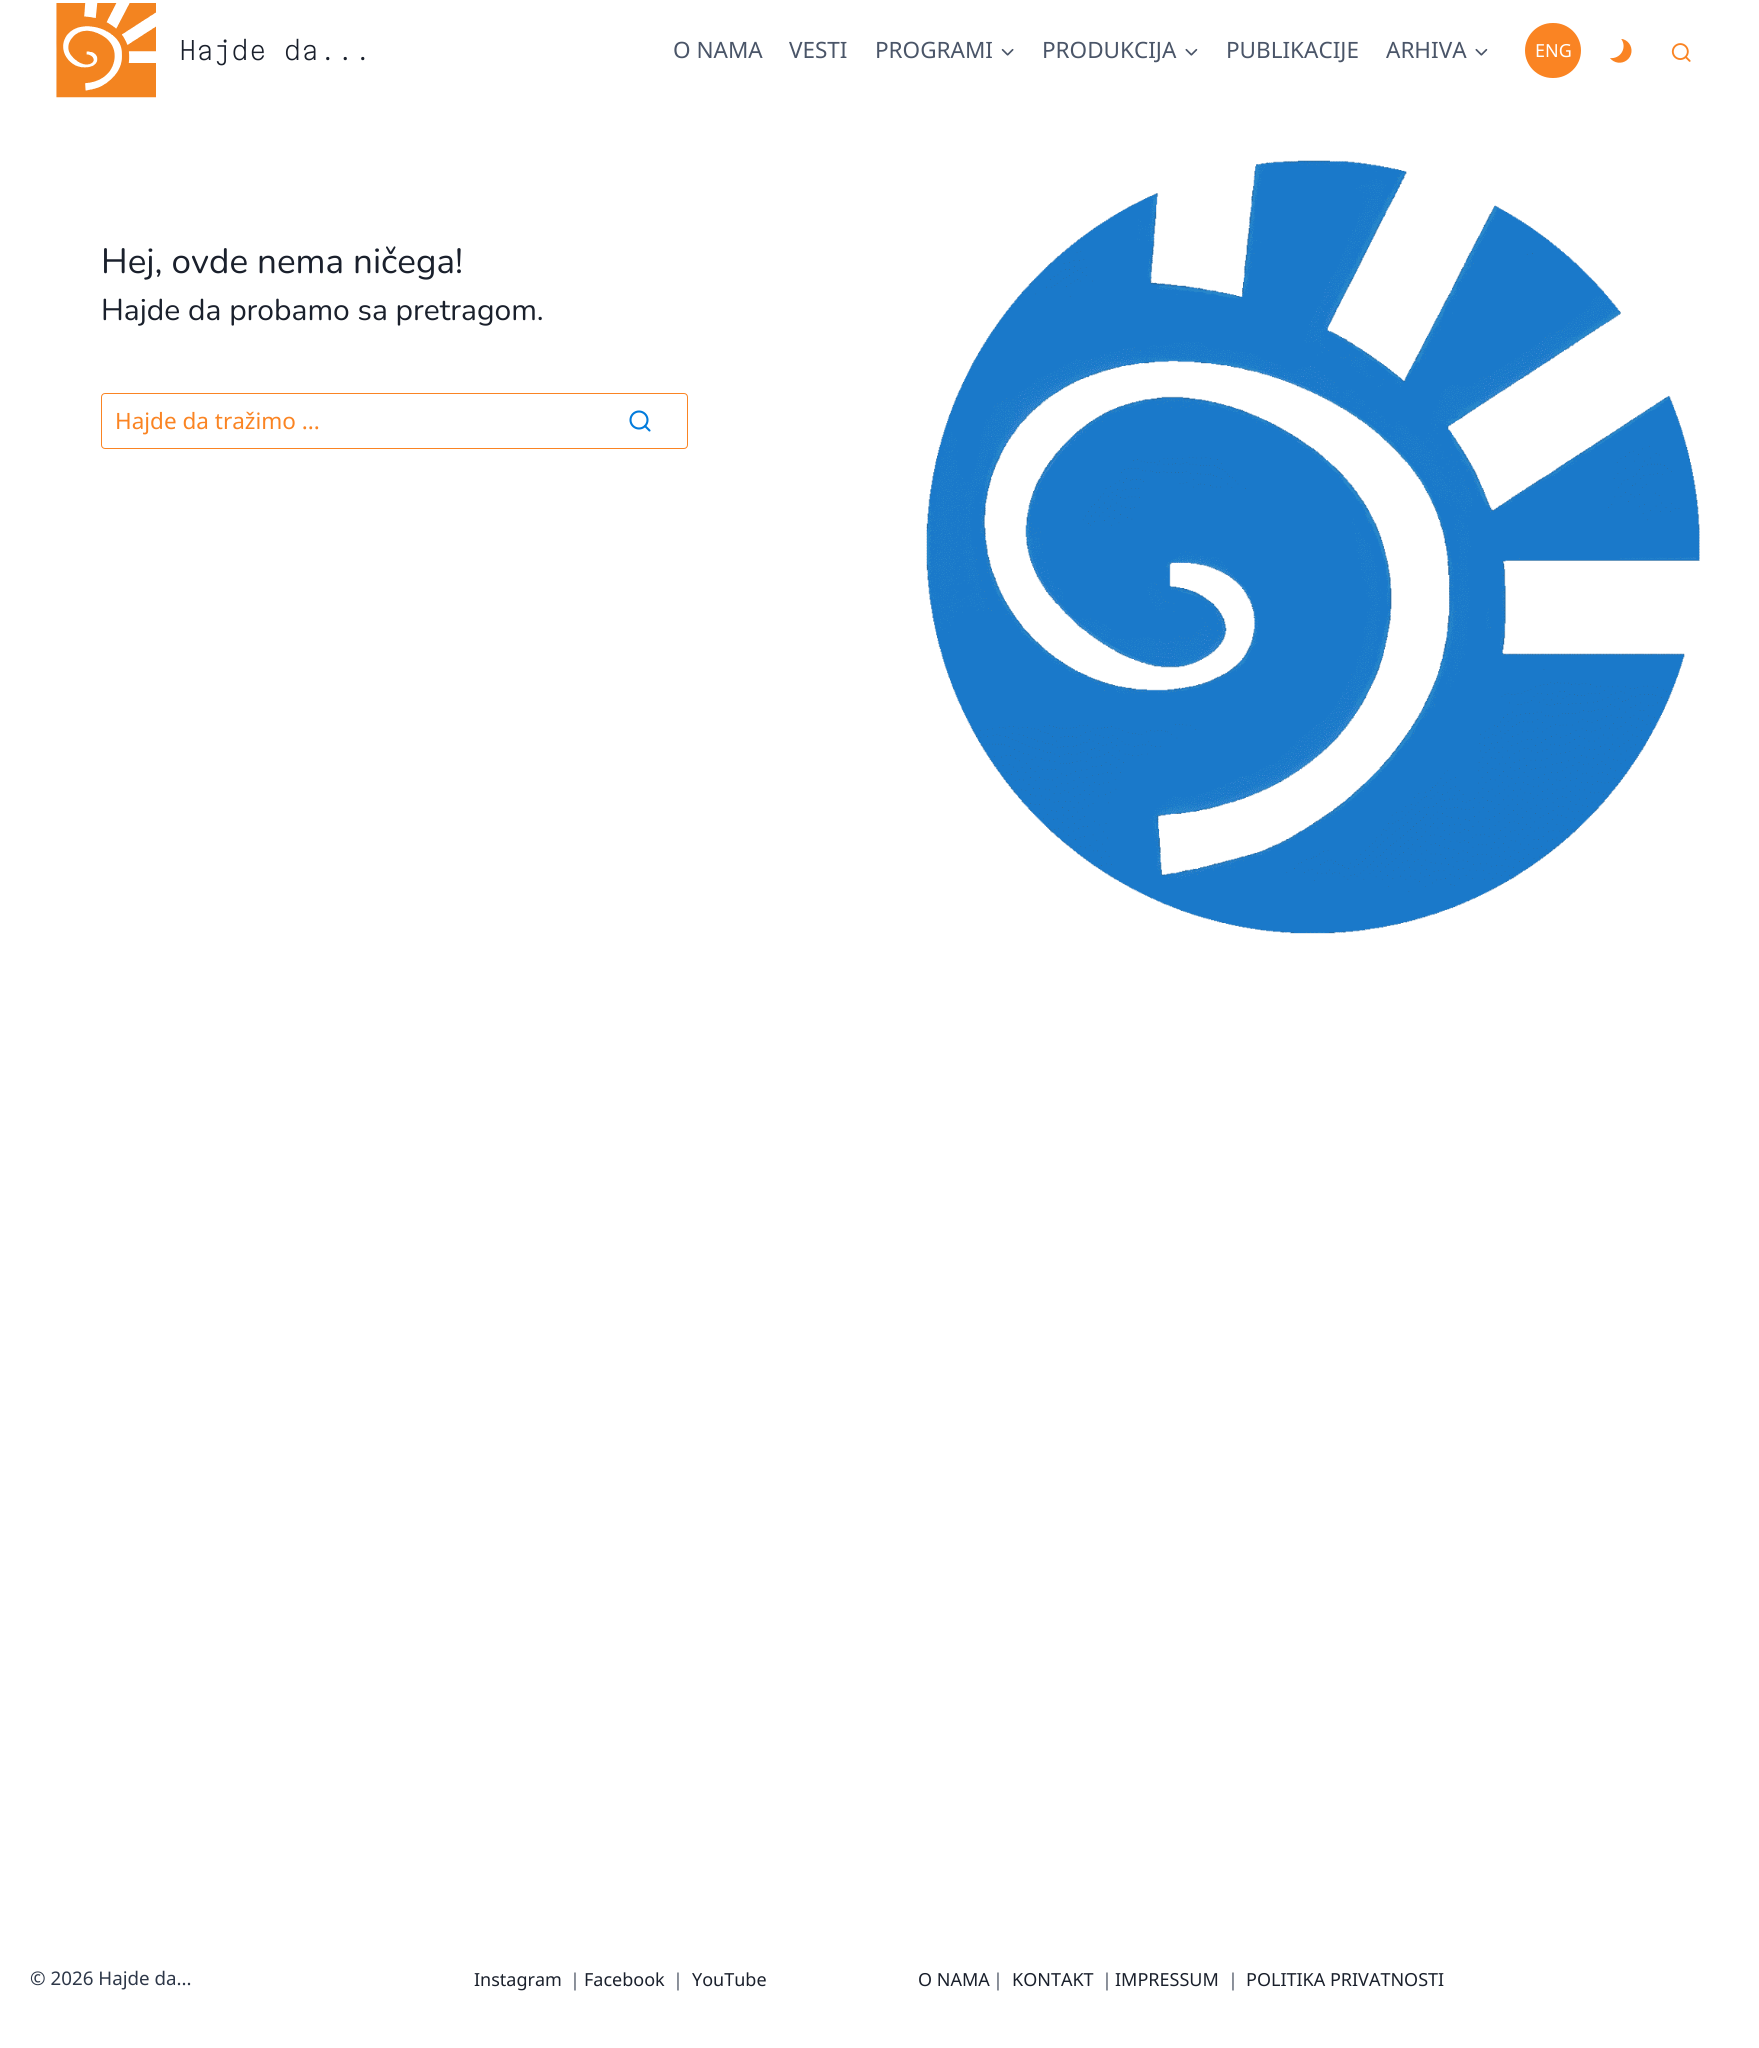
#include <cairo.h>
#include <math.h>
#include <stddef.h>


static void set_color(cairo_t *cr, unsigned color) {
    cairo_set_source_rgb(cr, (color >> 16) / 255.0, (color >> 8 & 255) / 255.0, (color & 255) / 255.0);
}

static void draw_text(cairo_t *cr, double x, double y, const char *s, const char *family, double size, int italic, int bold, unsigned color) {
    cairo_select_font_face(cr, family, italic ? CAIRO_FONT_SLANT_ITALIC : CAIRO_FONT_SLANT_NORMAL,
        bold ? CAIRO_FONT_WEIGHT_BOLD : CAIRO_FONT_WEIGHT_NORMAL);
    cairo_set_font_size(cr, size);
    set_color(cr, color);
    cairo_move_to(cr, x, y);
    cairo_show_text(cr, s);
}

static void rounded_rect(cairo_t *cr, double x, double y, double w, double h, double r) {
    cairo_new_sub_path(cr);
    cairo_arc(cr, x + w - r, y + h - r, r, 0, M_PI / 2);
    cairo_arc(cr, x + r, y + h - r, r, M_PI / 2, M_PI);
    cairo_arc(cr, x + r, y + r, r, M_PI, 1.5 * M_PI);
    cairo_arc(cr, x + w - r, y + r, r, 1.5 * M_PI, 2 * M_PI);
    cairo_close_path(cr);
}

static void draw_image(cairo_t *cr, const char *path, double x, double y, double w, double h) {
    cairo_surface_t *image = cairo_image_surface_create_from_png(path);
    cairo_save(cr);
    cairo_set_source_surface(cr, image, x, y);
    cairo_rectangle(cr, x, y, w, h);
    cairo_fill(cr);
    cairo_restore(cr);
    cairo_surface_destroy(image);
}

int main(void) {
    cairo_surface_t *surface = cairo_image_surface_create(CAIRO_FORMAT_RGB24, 1759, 2048);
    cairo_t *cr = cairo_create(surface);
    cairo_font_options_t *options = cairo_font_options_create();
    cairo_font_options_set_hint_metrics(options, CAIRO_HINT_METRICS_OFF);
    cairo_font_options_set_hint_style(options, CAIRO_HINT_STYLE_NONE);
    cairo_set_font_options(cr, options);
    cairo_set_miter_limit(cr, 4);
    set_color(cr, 0xFFFFFF);
    cairo_paint(cr);
    draw_image(cr, "assets/img1.png", 56, 3, 100, 95);
    draw_text(cr, 179, 60, "Hajde da...", "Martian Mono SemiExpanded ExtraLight", 25, 0, 0, 0x1A202C);
    draw_text(cr, 673, 58, "O NAMA", "Noto Sans", 22.5, 0, 0, 0x4A5568);
    draw_text(cr, 789, 58, "VESTI", "Noto Sans", 22.5, 0, 0, 0x4A5568);
    draw_text(cr, 875, 58, "PROGRAMI", "Noto Sans", 22.5, 0, 0, 0x4A5568);
    draw_image(cr, "assets/img2.png", 1001, 48, 13, 8);
    draw_text(cr, 1042, 58, "PRODUKCIJA", "Noto Sans", 22.5, 0, 0, 0x4A5568);
    draw_image(cr, "assets/img3.png", 1185, 48, 13, 8);
    draw_text(cr, 1226, 58, "PUBLIKACIJE", "Noto Sans", 22.5, 0, 0, 0x4A5568);
    draw_text(cr, 1386, 58, "ARHIVA", "Noto Sans", 22.5, 0, 0, 0x4A5568);
    draw_image(cr, "assets/img3.png", 1475, 48, 13, 8);
    set_color(cr, 0xFA8423);
    rounded_rect(cr, 1525, 23, 56, 55, 27.5);
    cairo_fill(cr);
    draw_text(cr, 1535, 57, "ENG", "Noto Sans", 18, 0, 0, 0xFFFFFF);
    draw_image(cr, "assets/img4.png", 1610, 39, 22, 24);
    draw_image(cr, "assets/img5.png", 1671, 43, 20, 19);
    draw_text(cr, 101, 273, "Hej, ovde nema ničega!", "Nunito", 35, 0, 0, 0x1A202C);
    draw_text(cr, 101, 320, "Hajde da probamo sa pretragom.", "Nunito", 30, 0, 0, 0x1A202C);
    rounded_rect(cr, 101.5, 393.5, 586, 55, 3.5);
    set_color(cr, 0xFA8423);
    cairo_set_line_width(cr, 1);
    cairo_stroke(cr);
    draw_text(cr, 115, 429, "Hajde da tražimo ...", "Noto Sans", 22.5, 0, 0, 0xFA8423);
    cairo_new_path(cr);
    cairo_arc(cr, 639, 420, 8.5, 0, 2 * M_PI);
    set_color(cr, 0x017BDC);
    cairo_set_line_width(cr, 2.1);
    cairo_stroke(cr);
    cairo_new_path(cr);
    cairo_move_to(cr, 649.5, 430.5);
    cairo_line_to(cr, 645, 426);
    cairo_set_line_cap(cr, CAIRO_LINE_CAP_ROUND);
    cairo_set_line_join(cr, CAIRO_LINE_JOIN_ROUND);
    cairo_stroke(cr);
    draw_image(cr, "assets/img6.png", 926, 160, 774, 774);
    draw_text(cr, 30, 1985, "© 2026 Hajde da...", "Noto Sans", 18.75, 0, 0, 0x2D3748);
    draw_text(cr, 474, 1986, "Instagram", "Noto Sans", 18, 0, 0, 0x1A202C);
    draw_text(cr, 566, 1986, "｜", "WenQuanYi Zen Hei Medium", 18, 0, 0, 0x2D3748);
    draw_text(cr, 584, 1986, "Facebook", "Noto Sans", 18, 0, 0, 0x1A202C);
    draw_text(cr, 669, 1986, "｜", "WenQuanYi Zen Hei Medium", 18, 0, 0, 0x2D3748);
    draw_text(cr, 692, 1986, "YouTube", "Noto Sans", 18, 0, 0, 0x1A202C);
    draw_text(cr, 918, 1986, "O NAMA", "Noto Sans", 18, 0, 0, 0x1A202C);
    draw_text(cr, 989, 1986, "｜", "WenQuanYi Zen Hei Medium", 18, 0, 0, 0x2D3748);
    draw_text(cr, 1012, 1986, "KONTAKT", "Noto Sans", 18, 0, 0, 0x1A202C);
    draw_text(cr, 1098, 1986, "｜", "WenQuanYi Zen Hei Medium", 18, 0, 0, 0x2D3748);
    draw_text(cr, 1115, 1986, "IMPRESSUM", "Noto Sans", 18, 0, 0, 0x1A202C);
    draw_text(cr, 1224, 1986, "｜", "WenQuanYi Zen Hei Medium", 18, 0, 0, 0x2D3748);
    draw_text(cr, 1246, 1986, "POLITIKA PRIVATNOSTI", "Noto Sans", 18, 0, 0, 0x1A202C);
    cairo_surface_write_to_png(surface, "output.png");
    cairo_font_options_destroy(options);
    cairo_destroy(cr);
    cairo_surface_destroy(surface);
    return 0;
}
